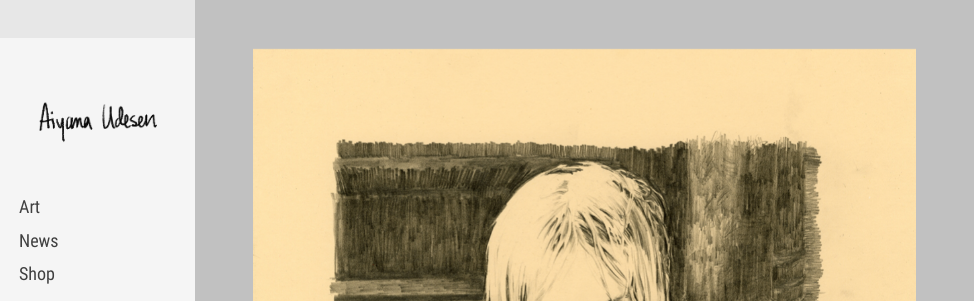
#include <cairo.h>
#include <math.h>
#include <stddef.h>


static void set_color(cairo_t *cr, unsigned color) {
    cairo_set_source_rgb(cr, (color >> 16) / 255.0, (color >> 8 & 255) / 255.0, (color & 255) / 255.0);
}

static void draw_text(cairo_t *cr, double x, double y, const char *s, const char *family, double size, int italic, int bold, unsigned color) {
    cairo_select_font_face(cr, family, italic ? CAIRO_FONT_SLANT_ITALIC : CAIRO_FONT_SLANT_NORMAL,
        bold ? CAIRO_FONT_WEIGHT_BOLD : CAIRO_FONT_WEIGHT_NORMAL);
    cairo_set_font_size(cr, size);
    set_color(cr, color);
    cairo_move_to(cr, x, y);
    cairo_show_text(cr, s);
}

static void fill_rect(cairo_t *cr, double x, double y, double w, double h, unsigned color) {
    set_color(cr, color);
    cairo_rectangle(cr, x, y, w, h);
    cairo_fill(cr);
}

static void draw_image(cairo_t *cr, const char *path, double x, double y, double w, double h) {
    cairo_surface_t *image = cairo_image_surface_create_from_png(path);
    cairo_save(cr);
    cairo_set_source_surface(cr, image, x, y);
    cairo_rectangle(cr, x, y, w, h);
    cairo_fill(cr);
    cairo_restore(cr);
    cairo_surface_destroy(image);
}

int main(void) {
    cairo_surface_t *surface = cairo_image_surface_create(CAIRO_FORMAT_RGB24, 974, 301);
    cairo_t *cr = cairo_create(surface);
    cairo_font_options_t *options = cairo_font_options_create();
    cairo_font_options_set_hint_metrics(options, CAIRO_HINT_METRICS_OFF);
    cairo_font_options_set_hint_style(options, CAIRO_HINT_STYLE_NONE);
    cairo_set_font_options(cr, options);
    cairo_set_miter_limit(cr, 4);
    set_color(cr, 0xC1C1C1);
    cairo_paint(cr);
    fill_rect(cr, 0, 38, 195, 263, 0xF5F5F5);
    fill_rect(cr, 0, 0, 195, 38, 0xE7E7E7);
    draw_image(cr, "assets/img1.png", 39, 102, 118, 41);
    draw_text(cr, 19, 213, "Art", "Roboto Condensed", 18, 0, 0, 0x404040);
    draw_text(cr, 19, 247, "News", "Roboto Condensed", 18, 0, 0, 0x404040);
    draw_text(cr, 19, 280, "Shop", "Roboto Condensed", 18, 0, 0, 0x404040);
    draw_image(cr, "assets/img2.png", 253, 48, 663, 253);
    cairo_surface_write_to_png(surface, "output.png");
    cairo_font_options_destroy(options);
    cairo_destroy(cr);
    cairo_surface_destroy(surface);
    return 0;
}
